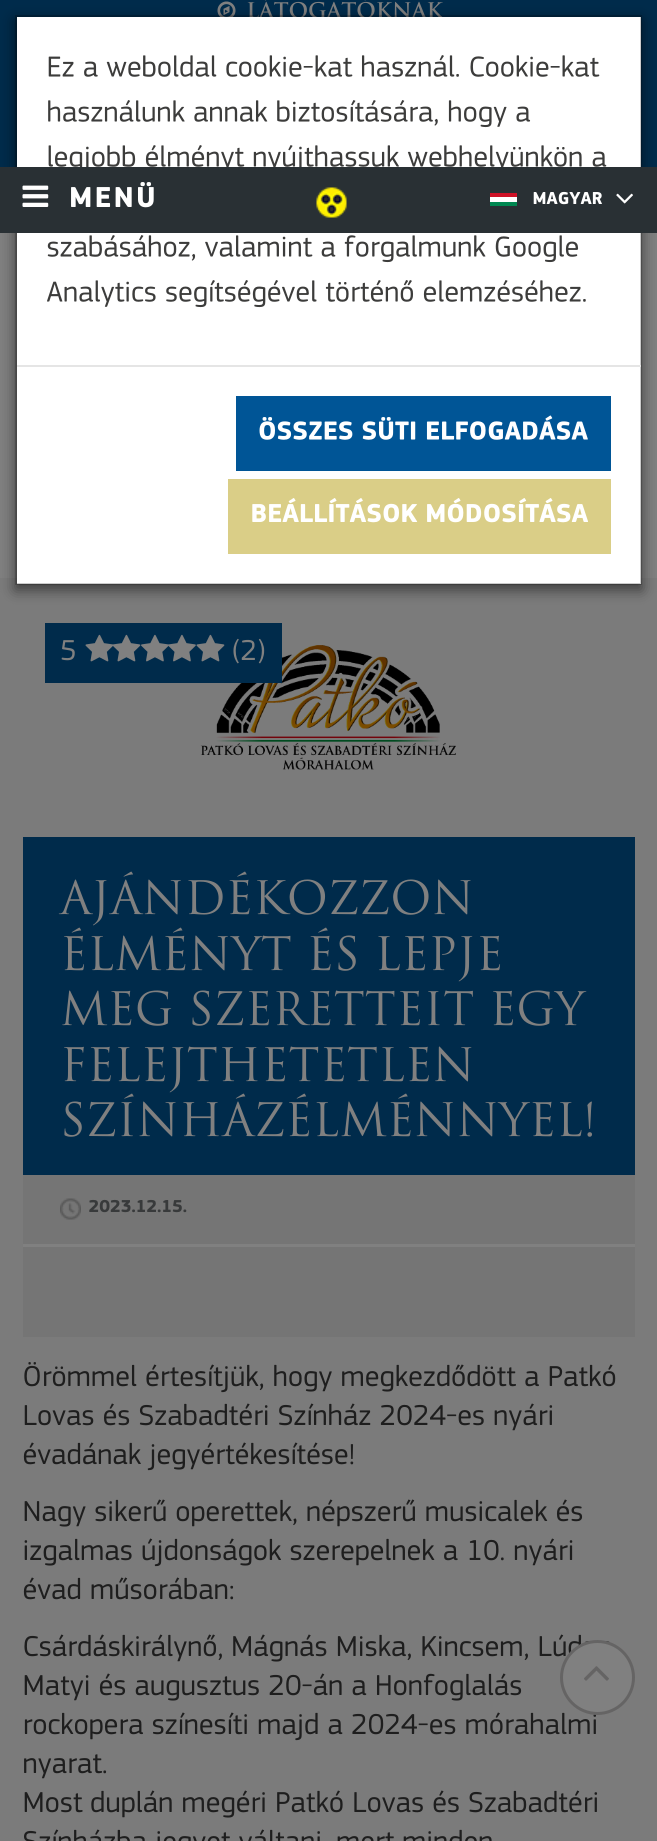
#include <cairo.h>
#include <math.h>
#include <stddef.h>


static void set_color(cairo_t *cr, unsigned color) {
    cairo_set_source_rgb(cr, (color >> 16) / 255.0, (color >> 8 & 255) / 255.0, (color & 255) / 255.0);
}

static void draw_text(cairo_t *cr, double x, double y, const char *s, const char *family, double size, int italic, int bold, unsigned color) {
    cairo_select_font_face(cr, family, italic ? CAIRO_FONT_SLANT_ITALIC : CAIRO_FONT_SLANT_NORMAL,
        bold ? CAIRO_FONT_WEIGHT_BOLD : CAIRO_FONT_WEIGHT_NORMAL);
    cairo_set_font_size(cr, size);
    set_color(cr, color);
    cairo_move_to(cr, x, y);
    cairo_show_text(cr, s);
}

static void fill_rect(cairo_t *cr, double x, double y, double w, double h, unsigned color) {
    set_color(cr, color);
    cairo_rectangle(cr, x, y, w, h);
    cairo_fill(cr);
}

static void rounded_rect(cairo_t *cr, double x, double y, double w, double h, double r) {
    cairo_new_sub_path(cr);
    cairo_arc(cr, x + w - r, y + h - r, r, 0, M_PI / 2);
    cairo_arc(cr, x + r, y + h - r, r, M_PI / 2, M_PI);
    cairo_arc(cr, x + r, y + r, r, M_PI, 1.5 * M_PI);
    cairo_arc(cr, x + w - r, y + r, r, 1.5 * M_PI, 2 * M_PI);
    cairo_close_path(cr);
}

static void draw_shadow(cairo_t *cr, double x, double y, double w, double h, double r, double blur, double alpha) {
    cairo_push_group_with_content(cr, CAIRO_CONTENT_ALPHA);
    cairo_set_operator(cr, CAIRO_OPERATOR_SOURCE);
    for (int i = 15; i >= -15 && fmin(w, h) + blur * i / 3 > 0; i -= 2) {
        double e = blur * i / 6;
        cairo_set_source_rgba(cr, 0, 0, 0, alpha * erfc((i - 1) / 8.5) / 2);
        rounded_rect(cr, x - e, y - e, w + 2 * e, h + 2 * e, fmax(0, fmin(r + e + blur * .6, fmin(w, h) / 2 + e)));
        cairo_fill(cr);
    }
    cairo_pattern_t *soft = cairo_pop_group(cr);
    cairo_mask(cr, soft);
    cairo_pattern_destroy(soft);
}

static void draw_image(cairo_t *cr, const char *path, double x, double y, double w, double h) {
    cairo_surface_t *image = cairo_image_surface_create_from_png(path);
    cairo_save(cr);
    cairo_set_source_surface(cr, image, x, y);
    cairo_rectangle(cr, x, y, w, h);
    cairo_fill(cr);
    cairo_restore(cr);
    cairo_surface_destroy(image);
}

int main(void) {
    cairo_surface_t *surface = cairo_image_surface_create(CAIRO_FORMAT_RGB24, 657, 1841);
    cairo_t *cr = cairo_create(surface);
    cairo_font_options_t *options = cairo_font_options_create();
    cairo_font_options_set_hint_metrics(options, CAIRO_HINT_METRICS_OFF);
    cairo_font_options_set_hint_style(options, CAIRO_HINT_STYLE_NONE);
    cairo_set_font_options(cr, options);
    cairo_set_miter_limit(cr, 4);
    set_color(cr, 0x7B7B7B);
    cairo_paint(cr);
    fill_rect(cr, 0, 0, 657, 167, 0x002B4B);
    draw_image(cr, "assets/img8.png", 217, 1, 19, 16);
    draw_image(cr, "assets/img9.png", 247, 0, 196, 17);
    fill_rect(cr, 0, 233, 657, 345, 0x808080);
    set_color(cr, 0x000000);
    draw_shadow(cr, 15, 20, 627, 570, 0, 7, 0.5);
    fill_rect(cr, 17, 17, 624, 567, 0xFFFFFF);
    cairo_rectangle(cr, 16, 16, 625, 568);
    cairo_set_source_rgba(cr, 0, 0, 0, 0.2);
    cairo_stroke(cr);
    draw_image(cr, "assets/img1.png", 48, 55, 552, 22);
    draw_image(cr, "assets/img2.png", 48, 100, 483, 28);
    draw_image(cr, "assets/img3.png", 48, 145, 559, 22);
    draw_image(cr, "assets/img4.png", 47, 235, 532, 28);
    draw_image(cr, "assets/img5.png", 47, 280, 539, 28);
    fill_rect(cr, 17, 365, 624, 2, 0xE5E5E5);
    fill_rect(cr, 236, 396, 375, 75, 0x005596);
    draw_image(cr, "assets/img6.png", 259, 415, 329, 25);
    fill_rect(cr, 228, 479, 383, 75, 0xDACE87);
    draw_image(cr, "assets/img7.png", 252, 498, 336, 25);
    fill_rect(cr, 0, 167, 657, 66, 0x293034);
    draw_image(cr, "assets/img10.png", 22, 185, 27, 22);
    draw_image(cr, "assets/img11.png", 71, 182, 83, 26);
    draw_image(cr, "assets/img12.png", 316, 187, 31, 31);
    fill_rect(cr, 490, 193, 27, 4, 0xCE1126);
    draw_image(cr, "assets/img13.png", 533, 191, 69, 14);
    draw_image(cr, "assets/img14.png", 616, 193, 17, 11);
    fill_rect(cr, 490, 197, 27, 5, 0xFFFFFF);
    fill_rect(cr, 490, 202, 27, 4, 0x008751);
    draw_image(cr, "assets/img21.png", 200, 645, 256, 125);
    fill_rect(cr, 45, 623, 237, 60, 0x002B4B);
    draw_image(cr, "assets/img15.png", 61, 640, 14, 21);
    draw_image(cr, "assets/img16.png", 85, 634, 29, 28);
    draw_image(cr, "assets/img17.png", 112, 634, 29, 28);
    draw_image(cr, "assets/img18.png", 141, 634, 28, 28);
    draw_image(cr, "assets/img19.png", 168, 634, 28, 28);
    draw_image(cr, "assets/img16.png", 196, 634, 29, 28);
    draw_image(cr, "assets/img20.png", 233, 638, 32, 26);
    fill_rect(cr, 23, 837, 612, 338, 0x002B4B);
    draw_text(cr, 60, 914, "AJÁNDÉKOZZON", "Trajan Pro", 45, 0, 0, 0x808080);
    draw_text(cr, 60, 970, "ÉLMÉNYT ÉS LEPJE", "Trajan Pro", 45, 0, 0, 0x808080);
    draw_text(cr, 60, 1025, "MEG SZERETTEIT EGY", "Trajan Pro", 45, 0, 0, 0x808080);
    draw_text(cr, 60, 1081, "FELEJTHETETLEN", "Trajan Pro", 45, 0, 0, 0x808080);
    draw_text(cr, 60, 1136, "SZÍNHÁZÉLMÉNNYEL!", "Trajan Pro", 45, 0, 0, 0x808080);
    fill_rect(cr, 23, 1175, 612, 69, 0x757575);
    fill_rect(cr, 23, 1244, 612, 3, 0x808080);
    draw_image(cr, "assets/img22.png", 60, 1198, 21, 22);
    draw_image(cr, "assets/img23.png", 89, 1199, 98, 14);
    fill_rect(cr, 23, 1247, 612, 90, 0x757575);
    draw_image(cr, "assets/img24.png", 24, 1362, 592, 31);
    draw_image(cr, "assets/img25.png", 24, 1403, 529, 28);
    draw_image(cr, "assets/img26.png", 23, 1442, 331, 29);
    draw_image(cr, "assets/img27.png", 24, 1499, 559, 28);
    draw_image(cr, "assets/img28.png", 24, 1538, 549, 29);
    draw_image(cr, "assets/img29.png", 23, 1577, 211, 23);
    draw_image(cr, "assets/img30.png", 24, 1634, 198, 28);
    draw_image(cr, "assets/img31.png", 233, 1634, 377, 28);
    draw_image(cr, "assets/img32.png", 24, 1673, 498, 28);
    draw_image(cr, "assets/img33.png", 24, 1712, 572, 29);
    draw_image(cr, "assets/img34.png", 24, 1754, 83, 25);
    draw_image(cr, "assets/img35.png", 24, 1792, 59, 21);
    draw_image(cr, "assets/img36.png", 91, 1790, 507, 28);
    draw_image(cr, "assets/img37.png", 24, 1829, 370, 12);
    draw_image(cr, "assets/img38.png", 403, 1829, 89, 12);
    set_color(cr, 0x808080);
    cairo_arc(cr, 597.5, 1677.5, 36, 0, 2 * M_PI);
    cairo_fill_preserve(cr);
    set_color(cr, 0x656464);
    cairo_set_line_width(cr, 3);
    cairo_stroke(cr);
    draw_image(cr, "assets/img39.png", 584, 1666, 25, 15);
    cairo_surface_write_to_png(surface, "output.png");
    cairo_font_options_destroy(options);
    cairo_destroy(cr);
    cairo_surface_destroy(surface);
    return 0;
}
